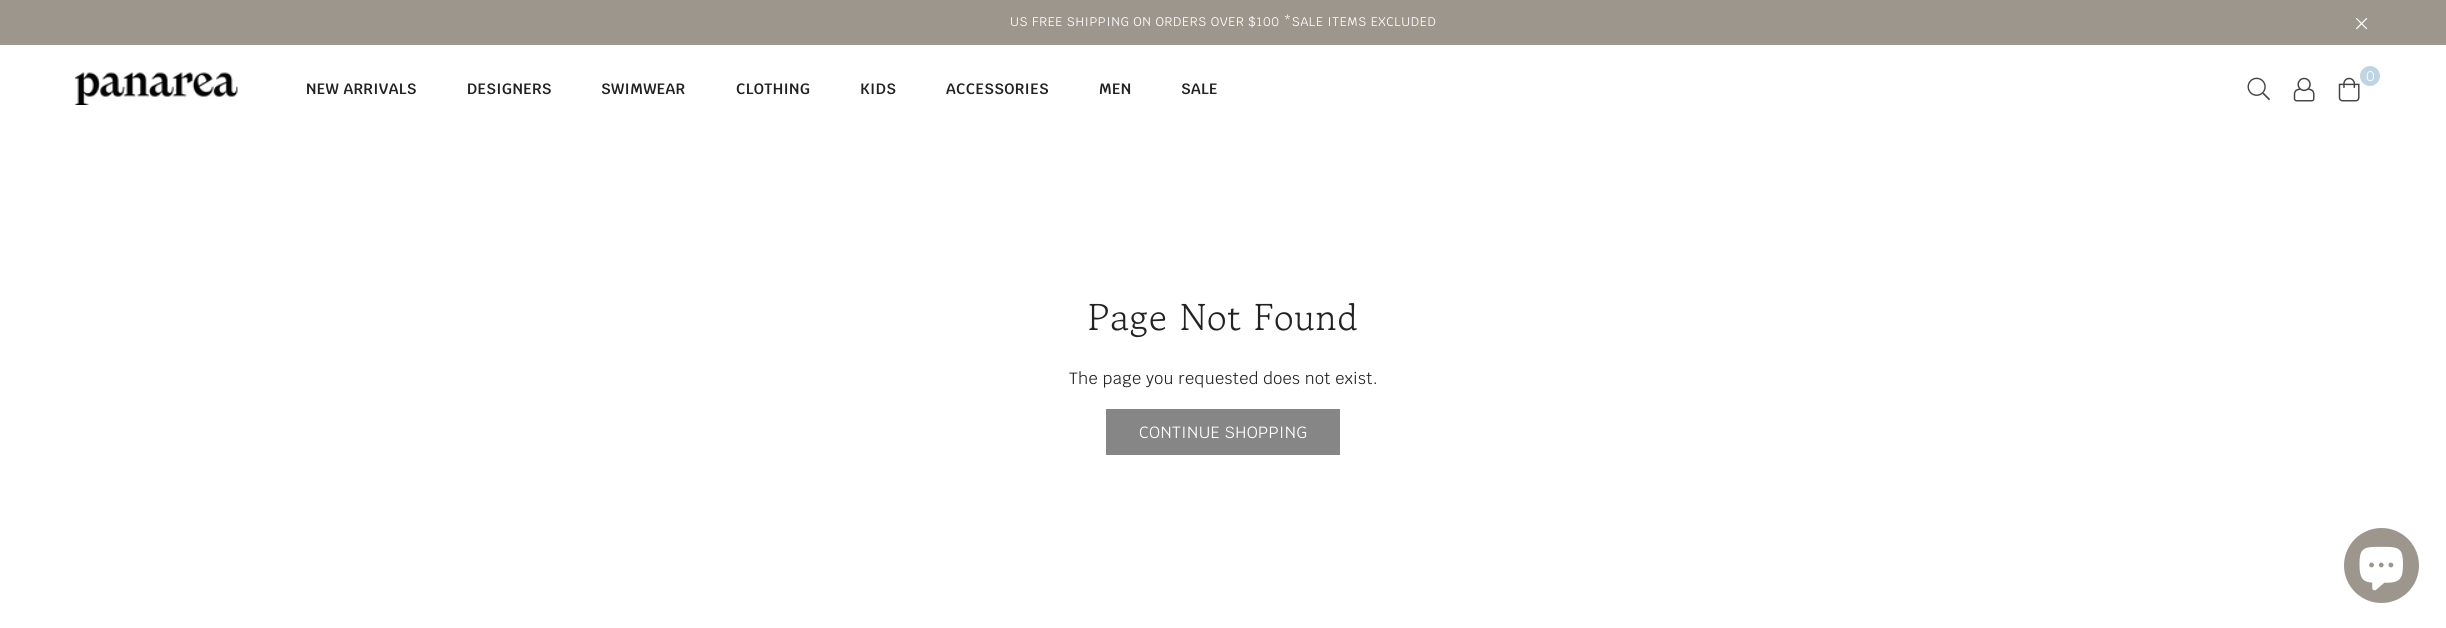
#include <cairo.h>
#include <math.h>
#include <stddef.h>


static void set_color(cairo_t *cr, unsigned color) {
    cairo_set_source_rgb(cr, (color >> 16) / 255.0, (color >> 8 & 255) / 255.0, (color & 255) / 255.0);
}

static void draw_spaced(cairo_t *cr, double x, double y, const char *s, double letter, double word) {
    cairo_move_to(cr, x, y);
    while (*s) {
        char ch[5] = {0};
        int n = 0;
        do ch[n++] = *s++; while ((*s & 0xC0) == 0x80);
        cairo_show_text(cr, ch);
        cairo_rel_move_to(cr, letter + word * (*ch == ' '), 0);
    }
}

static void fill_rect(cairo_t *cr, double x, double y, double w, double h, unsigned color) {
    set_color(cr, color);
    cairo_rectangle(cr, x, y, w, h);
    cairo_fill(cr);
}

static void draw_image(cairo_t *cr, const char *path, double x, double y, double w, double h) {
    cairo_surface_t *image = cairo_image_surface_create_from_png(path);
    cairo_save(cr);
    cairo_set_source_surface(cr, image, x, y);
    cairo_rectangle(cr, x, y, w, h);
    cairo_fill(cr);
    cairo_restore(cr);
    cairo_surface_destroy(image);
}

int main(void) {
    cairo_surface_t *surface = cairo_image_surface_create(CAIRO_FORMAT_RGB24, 2446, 628);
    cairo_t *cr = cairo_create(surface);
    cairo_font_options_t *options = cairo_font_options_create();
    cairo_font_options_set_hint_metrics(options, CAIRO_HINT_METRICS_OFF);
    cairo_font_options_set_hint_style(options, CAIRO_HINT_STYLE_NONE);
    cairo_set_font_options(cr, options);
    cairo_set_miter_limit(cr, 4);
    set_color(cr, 0xFFFFFF);
    cairo_paint(cr);
    fill_rect(cr, 0, 0, 2446, 45, 0x9D968D);
    cairo_select_font_face(cr, "Krub", CAIRO_FONT_SLANT_NORMAL, CAIRO_FONT_WEIGHT_NORMAL);
    cairo_set_font_size(cr, 12.5);
    set_color(cr, 0xFFFFFF);
    draw_spaced(cr, 1010, 26, "US FREE SHIPPING ON ORDERS OVER $100 *SALE ITEMS EXCLUDED", 0.62, 0);
    draw_image(cr, "assets/img1.png", 2356, 18, 12, 12);
    draw_image(cr, "assets/img2.png", 75, 72, 163, 33);
    cairo_select_font_face(cr, "Krub SemiBold", CAIRO_FONT_SLANT_NORMAL, CAIRO_FONT_WEIGHT_NORMAL);
    cairo_set_font_size(cr, 15);
    set_color(cr, 0x222222);
    draw_spaced(cr, 306, 94, "NEW ARRIVALS", 0.35, 0);
    draw_spaced(cr, 467, 94, "DESIGNERS", 0.35, 0);
    draw_spaced(cr, 601, 94, "SWIMWEAR", 0.35, 0);
    draw_spaced(cr, 736, 94, "CLOTHING", 0.35, 0);
    draw_spaced(cr, 860, 94, "KIDS", 0.35, 0);
    draw_spaced(cr, 946, 94, "ACCESSORIES", 0.35, 0);
    draw_spaced(cr, 1099, 94, "MEN", 0.35, 0);
    draw_spaced(cr, 1181, 94, "SALE", 0.35, 0);
    draw_image(cr, "assets/img3.png", 2247, 77, 23, 24);
    draw_image(cr, "assets/img4.png", 2293, 77, 22, 25);
    draw_image(cr, "assets/img5.png", 2338, 77, 22, 25);
    set_color(cr, 0xBED5E3);
    cairo_arc(cr, 2370, 76, 10, 0, 2 * M_PI);
    cairo_fill(cr);
    cairo_select_font_face(cr, "Krub", CAIRO_FONT_SLANT_NORMAL, CAIRO_FONT_WEIGHT_NORMAL);
    cairo_set_font_size(cr, 14);
    set_color(cr, 0xFFFFFF);
    draw_spaced(cr, 2366, 81, "0", 0.35, 0);
    cairo_select_font_face(cr, "Gowun Batang", CAIRO_FONT_SLANT_NORMAL, CAIRO_FONT_WEIGHT_NORMAL);
    cairo_set_font_size(cr, 37.5);
    set_color(cr, 0x222222);
    draw_spaced(cr, 1088, 333, "Page Not Found", 0.75, 0);
    cairo_select_font_face(cr, "Krub", CAIRO_FONT_SLANT_NORMAL, CAIRO_FONT_WEIGHT_NORMAL);
    cairo_set_font_size(cr, 16.25);
    draw_spaced(cr, 1069, 384, "The page you requested does not exist.", 0.35, 0);
    fill_rect(cr, 1106, 409, 234, 46, 0x868686);
    set_color(cr, 0xFFFFFF);
    draw_spaced(cr, 1139, 438, "CONTINUE SHOPPING", 0.35, 0);
    set_color(cr, 0x9D968D);
    cairo_new_path(cr);
    cairo_arc(cr, 2381.5, 565.5, 37.5, 0, 2 * M_PI);
    cairo_fill(cr);
    draw_image(cr, "assets/img6.png", 2359, 546, 44, 45);
    cairo_surface_write_to_png(surface, "output.png");
    cairo_font_options_destroy(options);
    cairo_destroy(cr);
    cairo_surface_destroy(surface);
    return 0;
}
